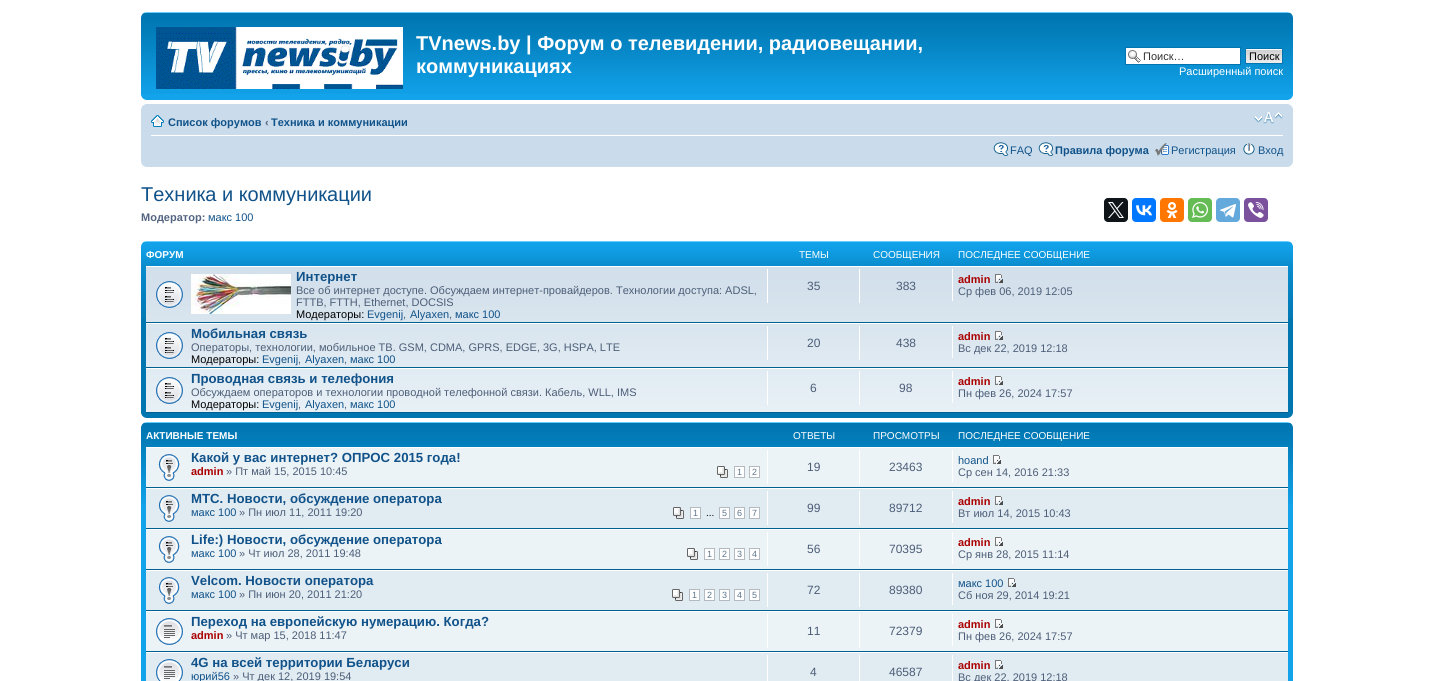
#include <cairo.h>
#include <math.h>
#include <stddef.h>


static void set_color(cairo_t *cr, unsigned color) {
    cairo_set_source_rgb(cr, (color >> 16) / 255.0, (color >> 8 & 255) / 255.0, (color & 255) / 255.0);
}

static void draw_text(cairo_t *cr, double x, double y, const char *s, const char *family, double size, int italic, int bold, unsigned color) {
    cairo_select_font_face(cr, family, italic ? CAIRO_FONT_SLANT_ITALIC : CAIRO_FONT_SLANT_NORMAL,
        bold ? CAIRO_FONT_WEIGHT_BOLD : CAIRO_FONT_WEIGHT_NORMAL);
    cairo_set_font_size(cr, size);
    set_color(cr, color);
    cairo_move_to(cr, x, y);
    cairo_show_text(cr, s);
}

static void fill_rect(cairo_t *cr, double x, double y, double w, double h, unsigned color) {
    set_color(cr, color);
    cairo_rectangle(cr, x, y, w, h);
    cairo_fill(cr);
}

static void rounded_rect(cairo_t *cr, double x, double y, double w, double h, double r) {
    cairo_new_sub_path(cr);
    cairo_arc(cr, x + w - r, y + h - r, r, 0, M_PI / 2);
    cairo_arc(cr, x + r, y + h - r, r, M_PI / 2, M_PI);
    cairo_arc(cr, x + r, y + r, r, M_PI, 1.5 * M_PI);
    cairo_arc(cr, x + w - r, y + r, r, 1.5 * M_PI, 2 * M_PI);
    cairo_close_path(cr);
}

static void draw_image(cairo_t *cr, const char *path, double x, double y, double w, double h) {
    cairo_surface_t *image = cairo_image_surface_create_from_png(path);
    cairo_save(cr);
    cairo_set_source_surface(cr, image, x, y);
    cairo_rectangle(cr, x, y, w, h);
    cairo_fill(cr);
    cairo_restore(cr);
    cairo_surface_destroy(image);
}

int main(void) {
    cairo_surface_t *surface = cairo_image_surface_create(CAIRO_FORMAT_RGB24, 1434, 681);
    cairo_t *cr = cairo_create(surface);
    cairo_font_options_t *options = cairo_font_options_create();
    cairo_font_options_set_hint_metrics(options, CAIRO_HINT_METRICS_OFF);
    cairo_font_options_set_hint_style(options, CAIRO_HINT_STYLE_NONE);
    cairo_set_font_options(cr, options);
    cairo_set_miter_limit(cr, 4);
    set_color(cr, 0xFFFFFF);
    cairo_paint(cr);
    fill_rect(cr, 141, 94, 1152, 6, 0x12A3EB);
    draw_image(cr, "assets/img1.png", 141, 12, 1152, 82);
    draw_image(cr, "assets/img2.png", 141, 12, 5, 5);
    draw_image(cr, "assets/img3.png", 1288, 12, 5, 5);
    draw_image(cr, "assets/img4.png", 156, 27, 247, 62);
    draw_text(cr, 416, 50, "TVnews.by | Форум о телевидении, радиовещании,", "Liberation Sans", 20, 0, 1, 0xFFFFFF);
    draw_text(cr, 416, 73, "коммуникациях", "Liberation Sans", 20, 0, 1, 0xFFFFFF);
    fill_rect(cr, 1126, 48, 114, 16, 0xFFFFFF);
    draw_image(cr, "assets/img5.png", 1128, 50, 13, 13);
    cairo_rectangle(cr, 1125.5, 47.5, 115, 17);
    set_color(cr, 0x0075B0);
    cairo_set_line_width(cr, 1);
    cairo_stroke(cr);
    draw_text(cr, 1143, 60, "Поиск…", "Liberation Sans", 11, 0, 0, 0x333333);
    draw_image(cr, "assets/img6.png", 1246, 49, 36, 14);
    cairo_rectangle(cr, 1245.5, 48.5, 37, 15);
    set_color(cr, 0x0075B0);
    cairo_stroke(cr);
    draw_text(cr, 1249, 60, "Поиск", "Liberation Sans", 11, 0, 0, 0x000000);
    draw_text(cr, 1179, 75, "Расширенный поиск", "Liberation Sans", 11, 0, 0, 0xFFFFFF);
    draw_image(cr, "assets/img7.png", 141, 95, 5, 5);
    draw_image(cr, "assets/img8.png", 1288, 95, 5, 5);
    fill_rect(cr, 141, 104, 1152, 63, 0xCADCEB);
    draw_image(cr, "assets/img9.png", 141, 104, 5, 5);
    draw_image(cr, "assets/img10.png", 1288, 104, 5, 5);
    fill_rect(cr, 151, 135, 1132, 1, 0xFFFFFF);
    draw_image(cr, "assets/img11.png", 151, 115, 13, 12);
    draw_text(cr, 168, 126, "Список форумов", "Liberation Sans", 11, 0, 1, 0x105289);
    draw_text(cr, 265, 126, "‹", "Liberation Sans", 11, 0, 1, 0x536482);
    draw_text(cr, 271, 126, "Техника и коммуникации", "Liberation Sans", 11, 0, 1, 0x105289);
    draw_image(cr, "assets/img12.png", 1254, 112, 29, 12);
    draw_image(cr, "assets/img13.png", 993, 142, 16, 14);
    draw_text(cr, 1010, 154, "FAQ", "Liberation Sans", 11, 0, 0, 0x105289);
    draw_image(cr, "assets/img13.png", 1038, 142, 16, 14);
    draw_text(cr, 1055, 154, "Правила форума", "Liberation Sans", 11, 0, 1, 0x105289);
    draw_image(cr, "assets/img14.png", 1155, 143, 14, 13);
    draw_text(cr, 1171, 154, "Регистрация", "Liberation Sans", 11, 0, 0, 0x105289);
    draw_image(cr, "assets/img15.png", 1243, 143, 12, 12);
    draw_text(cr, 1258, 154, "Вход", "Liberation Sans", 11, 0, 0, 0x105289);
    draw_image(cr, "assets/img16.png", 141, 162, 5, 5);
    draw_image(cr, "assets/img17.png", 1288, 162, 5, 5);
    draw_text(cr, 141, 201, "Техника и коммуникации", "Liberation Sans", 20, 0, 0, 0x105289);
    set_color(cr, 0x0F1419);
    rounded_rect(cr, 1104, 198, 24, 24, 4);
    cairo_fill(cr);
    draw_image(cr, "assets/img18.png", 1108, 202, 16, 16);
    set_color(cr, 0x0077FF);
    rounded_rect(cr, 1132, 198, 24, 24, 4);
    cairo_fill(cr);
    draw_image(cr, "assets/img19.png", 1136, 205, 16, 11);
    set_color(cr, 0xFF7700);
    rounded_rect(cr, 1160, 198, 24, 24, 4);
    cairo_fill(cr);
    draw_image(cr, "assets/img20.png", 1166, 202, 12, 16);
    set_color(cr, 0x65BC54);
    rounded_rect(cr, 1188, 198, 24, 24, 4);
    cairo_fill(cr);
    draw_image(cr, "assets/img21.png", 1192, 202, 16, 16);
    set_color(cr, 0x64A9DC);
    rounded_rect(cr, 1216, 198, 24, 24, 4);
    cairo_fill(cr);
    draw_image(cr, "assets/img22.png", 1220, 204, 16, 14);
    set_color(cr, 0x7B519D);
    rounded_rect(cr, 1244, 198, 24, 24, 4);
    cairo_fill(cr);
    draw_image(cr, "assets/img23.png", 1248, 202, 16, 16);
    draw_text(cr, 141, 221, "Модератор:", "Liberation Sans", 11, 0, 1, 0x536482);
    draw_text(cr, 208, 221, "макс 100", "Liberation Sans", 11, 0, 0, 0x105289);
    fill_rect(cr, 141, 318, 1152, 100, 0x0076B1);
    draw_image(cr, "assets/img24.png", 141, 241, 1152, 77);
    draw_image(cr, "assets/img25.png", 141, 241, 5, 5);
    draw_image(cr, "assets/img26.png", 1288, 241, 5, 5);
    draw_text(cr, 146, 258, "ФОРУМ", "Liberation Sans", 10, 0, 1, 0xFFFFFF);
    draw_text(cr, 799, 258, "ТЕМЫ", "Liberation Sans", 10, 0, 0, 0xFFFFFF);
    draw_text(cr, 873, 258, "СООБЩЕНИЯ", "Liberation Sans", 10, 0, 0, 0xFFFFFF);
    draw_text(cr, 958, 258, "ПОСЛЕДНЕЕ СООБЩЕНИЕ", "Liberation Sans", 10, 0, 0, 0xFFFFFF);
    draw_image(cr, "assets/img27.png", 146, 267, 1142, 145);
    fill_rect(cr, 146, 266, 1142, 1, 0xFFFFFF);
    fill_rect(cr, 146, 322, 1142, 1, 0x00608F);
    draw_image(cr, "assets/img28.png", 156, 281, 27, 27);
    draw_image(cr, "assets/img29.png", 191, 274, 100, 40);
    draw_text(cr, 296, 281, "Интернет", "Liberation Sans", 13.2, 0, 1, 0x105289);
    draw_text(cr, 296, 294, "Все об интернет доступе. Обсуждаем интернет-провайдеров. Технологии доступа: ADSL,", "Liberation Sans", 11, 0, 0, 0x4C5D77);
    draw_text(cr, 296, 306, "FTTB, FTTH, Ethernet, DOCSIS", "Liberation Sans", 11, 0, 0, 0x4C5D77);
    draw_text(cr, 296, 318, "Модераторы:", "Liberation Sans", 11, 0, 0, 0x000000);
    draw_text(cr, 367, 318, "Evgenij", "Liberation Sans", 11, 0, 0, 0x105289);
    draw_text(cr, 403, 318, ",", "Liberation Sans", 11, 0, 0, 0x4C5D77);
    draw_text(cr, 410, 318, "Alyaxen", "Liberation Sans", 11, 0, 0, 0x105289);
    draw_text(cr, 449, 318, ",", "Liberation Sans", 11, 0, 0, 0x4C5D77);
    draw_text(cr, 455, 318, "макс 100", "Liberation Sans", 11, 0, 0, 0x105289);
    fill_rect(cr, 767, 269, 1, 34, 0xFFFFFF);
    draw_text(cr, 807, 290, "35", "Liberation Sans", 12, 0, 0, 0x4C5D77);
    fill_rect(cr, 859, 269, 1, 34, 0xFFFFFF);
    draw_text(cr, 896, 290, "383", "Liberation Sans", 12, 0, 0, 0x4C5D77);
    fill_rect(cr, 952, 269, 1, 32, 0xFFFFFF);
    draw_text(cr, 958, 283, "admin", "Liberation Sans", 11, 0, 1, 0xAA0000);
    draw_image(cr, "assets/img30.png", 995, 274, 8, 9);
    draw_text(cr, 958, 295, "Ср фев 06, 2019 12:05", "Liberation Sans", 11, 0, 0, 0x4C5D77);
    fill_rect(cr, 146, 323, 1142, 1, 0xFFFFFF);
    fill_rect(cr, 146, 367, 1142, 1, 0x00608F);
    draw_image(cr, "assets/img31.png", 156, 332, 27, 27);
    draw_text(cr, 191, 338, "Мобильная связь", "Liberation Sans", 13.2, 0, 1, 0x105289);
    draw_text(cr, 191, 351, "Операторы, технологии, мобильное ТВ. GSM, CDMA, GPRS, EDGE, 3G, HSPA, LTE", "Liberation Sans", 11, 0, 0, 0x4C5D77);
    draw_text(cr, 191, 363, "Модераторы:", "Liberation Sans", 11, 0, 0, 0x000000);
    draw_text(cr, 262, 363, "Evgenij", "Liberation Sans", 11, 0, 0, 0x105289);
    draw_text(cr, 298, 363, ",", "Liberation Sans", 11, 0, 0, 0x4C5D77);
    draw_text(cr, 305, 363, "Alyaxen", "Liberation Sans", 11, 0, 0, 0x105289);
    draw_text(cr, 344, 363, ",", "Liberation Sans", 11, 0, 0, 0x4C5D77);
    draw_text(cr, 350, 363, "макс 100", "Liberation Sans", 11, 0, 0, 0x105289);
    fill_rect(cr, 767, 326, 1, 34, 0xFFFFFF);
    draw_text(cr, 807, 347, "20", "Liberation Sans", 12, 0, 0, 0x4C5D77);
    fill_rect(cr, 859, 326, 1, 34, 0xFFFFFF);
    draw_text(cr, 896, 347, "438", "Liberation Sans", 12, 0, 0, 0x4C5D77);
    fill_rect(cr, 952, 326, 1, 32, 0xFFFFFF);
    draw_text(cr, 958, 340, "admin", "Liberation Sans", 11, 0, 1, 0xAA0000);
    draw_image(cr, "assets/img32.png", 995, 331, 8, 9);
    draw_text(cr, 958, 352, "Вс дек 22, 2019 12:18", "Liberation Sans", 11, 0, 0, 0x4C5D77);
    fill_rect(cr, 146, 368, 1142, 1, 0xFFFFFF);
    fill_rect(cr, 146, 412, 1142, 1, 0x00608F);
    draw_image(cr, "assets/img33.png", 156, 377, 27, 27);
    draw_text(cr, 191, 383, "Проводная связь и телефония", "Liberation Sans", 13.2, 0, 1, 0x105289);
    draw_text(cr, 191, 396, "Обсуждаем операторов и технологии проводной телефонной связи. Кабель, WLL, IMS", "Liberation Sans", 11, 0, 0, 0x4C5D77);
    draw_text(cr, 191, 408, "Модераторы:", "Liberation Sans", 11, 0, 0, 0x000000);
    draw_text(cr, 262, 408, "Evgenij", "Liberation Sans", 11, 0, 0, 0x105289);
    draw_text(cr, 298, 408, ",", "Liberation Sans", 11, 0, 0, 0x4C5D77);
    draw_text(cr, 305, 408, "Alyaxen", "Liberation Sans", 11, 0, 0, 0x105289);
    draw_text(cr, 344, 408, ",", "Liberation Sans", 11, 0, 0, 0x4C5D77);
    draw_text(cr, 350, 408, "макс 100", "Liberation Sans", 11, 0, 0, 0x105289);
    fill_rect(cr, 767, 371, 1, 34, 0xFFFFFF);
    draw_text(cr, 810, 392, "6", "Liberation Sans", 12, 0, 0, 0x4C5D77);
    fill_rect(cr, 859, 371, 1, 34, 0xFFFFFF);
    draw_text(cr, 899, 392, "98", "Liberation Sans", 12, 0, 0, 0x4C5D77);
    fill_rect(cr, 952, 371, 1, 32, 0xFFFFFF);
    draw_text(cr, 958, 385, "admin", "Liberation Sans", 11, 0, 1, 0xAA0000);
    draw_image(cr, "assets/img34.png", 995, 376, 8, 9);
    draw_text(cr, 958, 397, "Пн фев 26, 2024 17:57", "Liberation Sans", 11, 0, 0, 0x4C5D77);
    draw_image(cr, "assets/img35.png", 141, 413, 5, 5);
    draw_image(cr, "assets/img36.png", 1288, 413, 5, 5);
    fill_rect(cr, 141, 504, 1152, 177, 0x12A3EB);
    draw_image(cr, "assets/img1.png", 141, 422, 1152, 82);
    draw_image(cr, "assets/img2.png", 141, 422, 5, 5);
    draw_image(cr, "assets/img3.png", 1288, 422, 5, 5);
    draw_text(cr, 146, 439, "АКТИВНЫЕ ТЕМЫ", "Liberation Sans", 10, 0, 1, 0xFFFFFF);
    draw_text(cr, 793, 439, "ОТВЕТЫ", "Liberation Sans", 10, 0, 0, 0xFFFFFF);
    draw_text(cr, 873, 439, "ПРОСМОТРЫ", "Liberation Sans", 10, 0, 0, 0xFFFFFF);
    draw_text(cr, 958, 439, "ПОСЛЕДНЕЕ СООБЩЕНИЕ", "Liberation Sans", 10, 0, 0, 0xFFFFFF);
    fill_rect(cr, 146, 448, 1142, 39, 0xECF3F7);
    fill_rect(cr, 146, 447, 1142, 1, 0xFFFFFF);
    fill_rect(cr, 146, 487, 1142, 1, 0x00608F);
    draw_image(cr, "assets/img37.png", 158, 454, 22, 27);
    draw_text(cr, 191, 462, "Какой у вас интернет? ОПРОС 2015 года!", "Liberation Sans", 13.2, 0, 1, 0x105289);
    draw_text(cr, 191, 475, "admin", "Liberation Sans", 11, 0, 1, 0xAA0000);
    draw_text(cr, 226, 475, "» Пт май 15, 2015 10:45", "Liberation Sans", 11, 0, 0, 0x4C5D77);
    draw_image(cr, "assets/img38.png", 717, 466, 11, 12);
    set_color(cr, 0xFFFFFF);
    cairo_rectangle(cr, 734.5, 466.5, 10, 11);
    cairo_fill_preserve(cr);
    set_color(cr, 0xB4BAC0);
    cairo_stroke(cr);
    draw_text(cr, 737, 475, "1", "Liberation Sans", 9, 0, 0, 0x5C758C);
    set_color(cr, 0xFFFFFF);
    cairo_rectangle(cr, 749.5, 466.5, 10, 11);
    cairo_fill_preserve(cr);
    set_color(cr, 0xB4BAC0);
    cairo_stroke(cr);
    draw_text(cr, 752, 475, "2", "Liberation Sans", 9, 0, 0, 0x5C758C);
    fill_rect(cr, 767, 450, 1, 34, 0xFFFFFF);
    draw_text(cr, 807, 471, "19", "Liberation Sans", 12, 0, 0, 0x4C5D77);
    fill_rect(cr, 859, 450, 1, 34, 0xFFFFFF);
    draw_text(cr, 889, 471, "23463", "Liberation Sans", 12, 0, 0, 0x4C5D77);
    fill_rect(cr, 952, 450, 1, 32, 0xFFFFFF);
    draw_text(cr, 958, 464, "hoand", "Liberation Sans", 11, 0, 0, 0x105289);
    draw_image(cr, "assets/img39.png", 993, 455, 8, 9);
    draw_text(cr, 958, 476, "Ср сен 14, 2016 21:33", "Liberation Sans", 11, 0, 0, 0x4C5D77);
    fill_rect(cr, 146, 489, 1142, 39, 0xE1EBF2);
    fill_rect(cr, 146, 488, 1142, 1, 0xFFFFFF);
    fill_rect(cr, 146, 528, 1142, 1, 0x00608F);
    draw_image(cr, "assets/img40.png", 158, 495, 22, 27);
    draw_text(cr, 191, 503, "МТС. Новости, обсуждение оператора", "Liberation Sans", 13.2, 0, 1, 0x105289);
    draw_text(cr, 191, 516, "макс 100", "Liberation Sans", 11, 0, 0, 0x105289);
    draw_text(cr, 239, 516, "» Пн июл 11, 2011 19:20", "Liberation Sans", 11, 0, 0, 0x4C5D77);
    draw_image(cr, "assets/img41.png", 673, 507, 11, 12);
    set_color(cr, 0xFFFFFF);
    cairo_rectangle(cr, 690.5, 507.5, 10, 11);
    cairo_fill_preserve(cr);
    set_color(cr, 0xB4BAC0);
    cairo_stroke(cr);
    draw_text(cr, 693, 516, "1", "Liberation Sans", 9, 0, 0, 0x5C758C);
    draw_text(cr, 706, 516, "...", "Liberation Sans", 10, 0, 0, 0x000000);
    set_color(cr, 0xFFFFFF);
    cairo_rectangle(cr, 719.5, 507.5, 10, 11);
    cairo_fill_preserve(cr);
    set_color(cr, 0xB4BAC0);
    cairo_stroke(cr);
    draw_text(cr, 722, 516, "5", "Liberation Sans", 9, 0, 0, 0x5C758C);
    set_color(cr, 0xFFFFFF);
    cairo_rectangle(cr, 734.5, 507.5, 10, 11);
    cairo_fill_preserve(cr);
    set_color(cr, 0xB4BAC0);
    cairo_stroke(cr);
    draw_text(cr, 737, 516, "6", "Liberation Sans", 9, 0, 0, 0x5C758C);
    set_color(cr, 0xFFFFFF);
    cairo_rectangle(cr, 749.5, 507.5, 10, 11);
    cairo_fill_preserve(cr);
    set_color(cr, 0xB4BAC0);
    cairo_stroke(cr);
    draw_text(cr, 752, 516, "7", "Liberation Sans", 9, 0, 0, 0x5C758C);
    fill_rect(cr, 767, 491, 1, 34, 0xFFFFFF);
    draw_text(cr, 807, 512, "99", "Liberation Sans", 12, 0, 0, 0x4C5D77);
    fill_rect(cr, 859, 491, 1, 34, 0xFFFFFF);
    draw_text(cr, 889, 512, "89712", "Liberation Sans", 12, 0, 0, 0x4C5D77);
    fill_rect(cr, 952, 491, 1, 32, 0xFFFFFF);
    draw_text(cr, 958, 505, "admin", "Liberation Sans", 11, 0, 1, 0xAA0000);
    draw_image(cr, "assets/img42.png", 995, 496, 8, 9);
    draw_text(cr, 958, 517, "Вт июл 14, 2015 10:43", "Liberation Sans", 11, 0, 0, 0x4C5D77);
    fill_rect(cr, 146, 530, 1142, 39, 0xECF3F7);
    fill_rect(cr, 146, 529, 1142, 1, 0xFFFFFF);
    fill_rect(cr, 146, 569, 1142, 1, 0x00608F);
    draw_image(cr, "assets/img37.png", 158, 536, 22, 27);
    draw_text(cr, 191, 544, "Life:) Новости, обсуждение оператора", "Liberation Sans", 13.2, 0, 1, 0x105289);
    draw_text(cr, 191, 557, "макс 100", "Liberation Sans", 11, 0, 0, 0x105289);
    draw_text(cr, 239, 557, "» Чт июл 28, 2011 19:48", "Liberation Sans", 11, 0, 0, 0x4C5D77);
    draw_image(cr, "assets/img38.png", 687, 548, 11, 12);
    set_color(cr, 0xFFFFFF);
    cairo_rectangle(cr, 704.5, 548.5, 10, 11);
    cairo_fill_preserve(cr);
    set_color(cr, 0xB4BAC0);
    cairo_stroke(cr);
    draw_text(cr, 707, 557, "1", "Liberation Sans", 9, 0, 0, 0x5C758C);
    set_color(cr, 0xFFFFFF);
    cairo_rectangle(cr, 719.5, 548.5, 10, 11);
    cairo_fill_preserve(cr);
    set_color(cr, 0xB4BAC0);
    cairo_stroke(cr);
    draw_text(cr, 722, 557, "2", "Liberation Sans", 9, 0, 0, 0x5C758C);
    set_color(cr, 0xFFFFFF);
    cairo_rectangle(cr, 734.5, 548.5, 10, 11);
    cairo_fill_preserve(cr);
    set_color(cr, 0xB4BAC0);
    cairo_stroke(cr);
    draw_text(cr, 737, 557, "3", "Liberation Sans", 9, 0, 0, 0x5C758C);
    set_color(cr, 0xFFFFFF);
    cairo_rectangle(cr, 749.5, 548.5, 10, 11);
    cairo_fill_preserve(cr);
    set_color(cr, 0xB4BAC0);
    cairo_stroke(cr);
    draw_text(cr, 752, 557, "4", "Liberation Sans", 9, 0, 0, 0x5C758C);
    fill_rect(cr, 767, 532, 1, 34, 0xFFFFFF);
    draw_text(cr, 807, 553, "56", "Liberation Sans", 12, 0, 0, 0x4C5D77);
    fill_rect(cr, 859, 532, 1, 34, 0xFFFFFF);
    draw_text(cr, 889, 553, "70395", "Liberation Sans", 12, 0, 0, 0x4C5D77);
    fill_rect(cr, 952, 532, 1, 32, 0xFFFFFF);
    draw_text(cr, 958, 546, "admin", "Liberation Sans", 11, 0, 1, 0xAA0000);
    draw_image(cr, "assets/img39.png", 995, 537, 8, 9);
    draw_text(cr, 958, 558, "Ср янв 28, 2015 11:14", "Liberation Sans", 11, 0, 0, 0x4C5D77);
    fill_rect(cr, 146, 571, 1142, 39, 0xE1EBF2);
    fill_rect(cr, 146, 570, 1142, 1, 0xFFFFFF);
    fill_rect(cr, 146, 610, 1142, 1, 0x00608F);
    draw_image(cr, "assets/img40.png", 158, 577, 22, 27);
    draw_text(cr, 191, 585, "Velcom. Новости оператора", "Liberation Sans", 13.2, 0, 1, 0x105289);
    draw_text(cr, 191, 598, "макс 100", "Liberation Sans", 11, 0, 0, 0x105289);
    draw_text(cr, 239, 598, "» Пн июн 20, 2011 21:20", "Liberation Sans", 11, 0, 0, 0x4C5D77);
    draw_image(cr, "assets/img41.png", 672, 589, 11, 12);
    set_color(cr, 0xFFFFFF);
    cairo_rectangle(cr, 689.5, 589.5, 10, 11);
    cairo_fill_preserve(cr);
    set_color(cr, 0xB4BAC0);
    cairo_stroke(cr);
    draw_text(cr, 692, 598, "1", "Liberation Sans", 9, 0, 0, 0x5C758C);
    set_color(cr, 0xFFFFFF);
    cairo_rectangle(cr, 704.5, 589.5, 10, 11);
    cairo_fill_preserve(cr);
    set_color(cr, 0xB4BAC0);
    cairo_stroke(cr);
    draw_text(cr, 707, 598, "2", "Liberation Sans", 9, 0, 0, 0x5C758C);
    set_color(cr, 0xFFFFFF);
    cairo_rectangle(cr, 719.5, 589.5, 10, 11);
    cairo_fill_preserve(cr);
    set_color(cr, 0xB4BAC0);
    cairo_stroke(cr);
    draw_text(cr, 722, 598, "3", "Liberation Sans", 9, 0, 0, 0x5C758C);
    set_color(cr, 0xFFFFFF);
    cairo_rectangle(cr, 734.5, 589.5, 10, 11);
    cairo_fill_preserve(cr);
    set_color(cr, 0xB4BAC0);
    cairo_stroke(cr);
    draw_text(cr, 737, 598, "4", "Liberation Sans", 9, 0, 0, 0x5C758C);
    set_color(cr, 0xFFFFFF);
    cairo_rectangle(cr, 749.5, 589.5, 10, 11);
    cairo_fill_preserve(cr);
    set_color(cr, 0xB4BAC0);
    cairo_stroke(cr);
    draw_text(cr, 752, 598, "5", "Liberation Sans", 9, 0, 0, 0x5C758C);
    fill_rect(cr, 767, 573, 1, 34, 0xFFFFFF);
    draw_text(cr, 807, 594, "72", "Liberation Sans", 12, 0, 0, 0x4C5D77);
    fill_rect(cr, 859, 573, 1, 34, 0xFFFFFF);
    draw_text(cr, 889, 594, "89380", "Liberation Sans", 12, 0, 0, 0x4C5D77);
    fill_rect(cr, 952, 573, 1, 32, 0xFFFFFF);
    draw_text(cr, 958, 587, "макс 100", "Liberation Sans", 11, 0, 0, 0x105289);
    draw_image(cr, "assets/img42.png", 1008, 578, 8, 9);
    draw_text(cr, 958, 599, "Сб ноя 29, 2014 19:21", "Liberation Sans", 11, 0, 0, 0x4C5D77);
    fill_rect(cr, 146, 612, 1142, 39, 0xECF3F7);
    fill_rect(cr, 146, 611, 1142, 1, 0xFFFFFF);
    fill_rect(cr, 146, 651, 1142, 1, 0x00608F);
    draw_image(cr, "assets/img43.png", 156, 618, 27, 27);
    draw_text(cr, 191, 626, "Переход на европейскую нумерацию. Когда?", "Liberation Sans", 13.2, 0, 1, 0x105289);
    draw_text(cr, 191, 639, "admin", "Liberation Sans", 11, 0, 1, 0xAA0000);
    draw_text(cr, 226, 639, "» Чт мар 15, 2018 11:47", "Liberation Sans", 11, 0, 0, 0x4C5D77);
    fill_rect(cr, 767, 614, 1, 34, 0xFFFFFF);
    draw_text(cr, 807, 635, "11", "Liberation Sans", 12, 0, 0, 0x4C5D77);
    fill_rect(cr, 859, 614, 1, 34, 0xFFFFFF);
    draw_text(cr, 889, 635, "72379", "Liberation Sans", 12, 0, 0, 0x4C5D77);
    fill_rect(cr, 952, 614, 1, 32, 0xFFFFFF);
    draw_text(cr, 958, 628, "admin", "Liberation Sans", 11, 0, 1, 0xAA0000);
    draw_image(cr, "assets/img39.png", 995, 619, 8, 9);
    draw_text(cr, 958, 640, "Пн фев 26, 2024 17:57", "Liberation Sans", 11, 0, 0, 0x4C5D77);
    fill_rect(cr, 146, 653, 1142, 28, 0xE1EBF2);
    fill_rect(cr, 146, 652, 1142, 1, 0xFFFFFF);
    draw_image(cr, "assets/img44.png", 156, 659, 27, 22);
    draw_text(cr, 191, 667, "4G на всей территории Беларуси", "Liberation Sans", 13.2, 0, 1, 0x105289);
    draw_text(cr, 191, 680, "юрий56", "Liberation Sans", 11, 0, 0, 0x105289);
    draw_text(cr, 233, 680, "» Чт дек 12, 2019 19:54", "Liberation Sans", 11, 0, 0, 0x4C5D77);
    fill_rect(cr, 767, 655, 1, 26, 0xFFFFFF);
    draw_text(cr, 810, 676, "4", "Liberation Sans", 12, 0, 0, 0x4C5D77);
    fill_rect(cr, 859, 655, 1, 26, 0xFFFFFF);
    draw_text(cr, 889, 676, "46587", "Liberation Sans", 12, 0, 0, 0x4C5D77);
    fill_rect(cr, 952, 655, 1, 26, 0xFFFFFF);
    draw_text(cr, 958, 669, "admin", "Liberation Sans", 11, 0, 1, 0xAA0000);
    draw_image(cr, "assets/img42.png", 995, 660, 8, 9);
    draw_text(cr, 958, 681, "Вс дек 22, 2019 12:18", "Liberation Sans", 11, 0, 0, 0x4C5D77);
    cairo_surface_write_to_png(surface, "output.png");
    cairo_font_options_destroy(options);
    cairo_destroy(cr);
    cairo_surface_destroy(surface);
    return 0;
}
